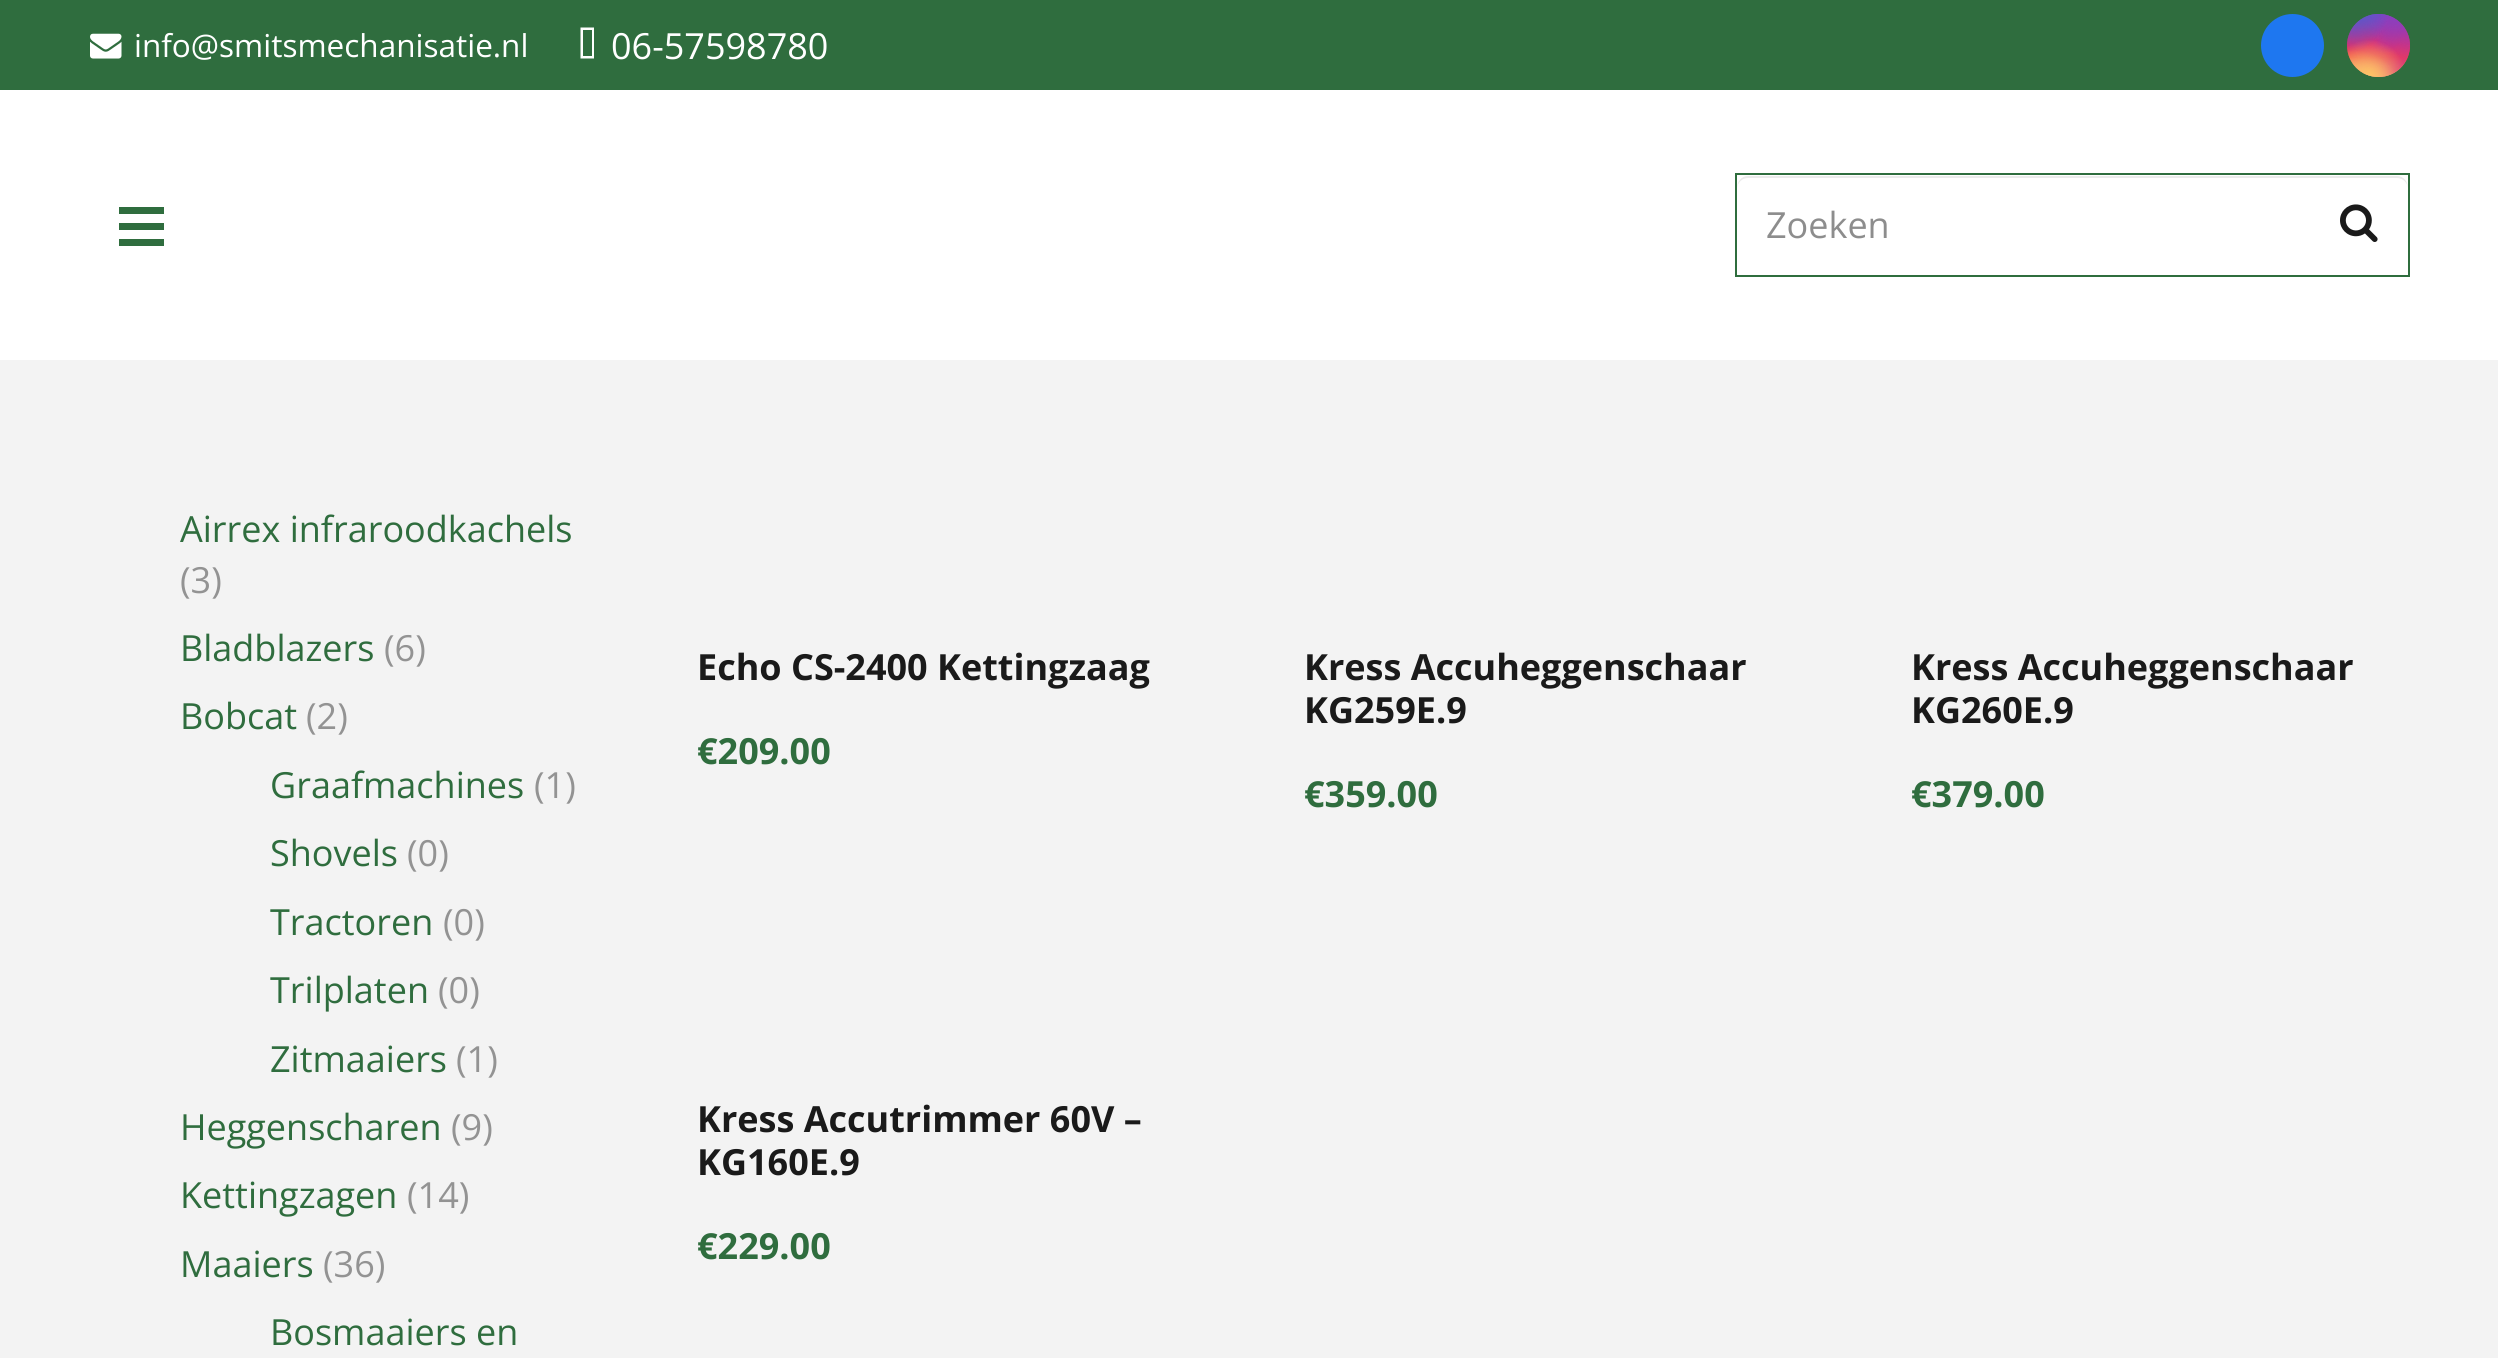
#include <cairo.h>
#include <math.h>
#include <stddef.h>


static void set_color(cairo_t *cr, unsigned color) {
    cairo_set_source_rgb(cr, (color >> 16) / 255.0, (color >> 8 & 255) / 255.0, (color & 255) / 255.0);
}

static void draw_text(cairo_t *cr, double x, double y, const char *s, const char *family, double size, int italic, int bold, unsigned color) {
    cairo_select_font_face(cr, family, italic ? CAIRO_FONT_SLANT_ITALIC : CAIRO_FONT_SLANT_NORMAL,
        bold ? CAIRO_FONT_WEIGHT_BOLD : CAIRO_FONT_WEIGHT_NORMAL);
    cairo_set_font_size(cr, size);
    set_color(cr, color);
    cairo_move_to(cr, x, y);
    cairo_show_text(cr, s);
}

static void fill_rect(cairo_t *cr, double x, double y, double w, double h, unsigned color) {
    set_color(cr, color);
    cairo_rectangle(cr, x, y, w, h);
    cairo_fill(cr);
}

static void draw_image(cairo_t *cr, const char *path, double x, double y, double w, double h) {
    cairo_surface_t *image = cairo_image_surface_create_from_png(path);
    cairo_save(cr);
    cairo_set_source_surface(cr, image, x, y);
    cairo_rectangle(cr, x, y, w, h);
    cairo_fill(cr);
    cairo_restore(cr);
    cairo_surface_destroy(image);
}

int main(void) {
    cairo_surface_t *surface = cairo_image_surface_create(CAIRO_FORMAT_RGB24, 2498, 1358);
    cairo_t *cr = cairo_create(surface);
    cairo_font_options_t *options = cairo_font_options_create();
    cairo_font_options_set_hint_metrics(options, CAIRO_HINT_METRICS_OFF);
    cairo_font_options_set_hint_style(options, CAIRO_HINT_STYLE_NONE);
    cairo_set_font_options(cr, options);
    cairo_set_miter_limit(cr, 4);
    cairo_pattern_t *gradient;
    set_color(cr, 0xF3F3F3);
    cairo_paint(cr);
    fill_rect(cr, 0, 0, 2498, 90, 0x2F6D3E);
    draw_image(cr, "assets/img1.png", 90, 33, 32, 26);
    draw_text(cr, 134, 57, "info@smitsmechanisatie.nl", "Open Sans", 31.5, 0, 0, 0xFFFFFF);
    cairo_new_path(cr);
    cairo_move_to(cr, 583, 56);
    cairo_line_to(cr, 583, 30);
    cairo_line_to(cr, 592, 30);
    cairo_line_to(cr, 592, 56);
    cairo_close_path(cr);
    cairo_move_to(cr, 580.5, 58.5);
    cairo_line_to(cr, 594, 58.5);
    cairo_line_to(cr, 594, 27.5);
    cairo_line_to(cr, 580.5, 27.5);
    cairo_close_path(cr);
    cairo_fill(cr);
    draw_text(cr, 611, 59, "06-57598780", "Open Sans", 36, 0, 0, 0xFFFFFF);
    set_color(cr, 0x1E77F0);
    cairo_new_path(cr);
    cairo_arc(cr, 2292.5, 45.5, 31.5, 0, 2 * M_PI);
    cairo_fill(cr);
    gradient = cairo_pattern_create_linear(2378, 13, 2378, 77);
    cairo_pattern_add_color_stop_rgba(gradient, 0, 0.396, 0.349, 0.792, 1);
    cairo_pattern_add_color_stop_rgba(gradient, 0.3, 0.737, 0.192, 0.561, 1);
    cairo_pattern_add_color_stop_rgba(gradient, 0.5, 0.894, 0.18, 0.4, 1);
    cairo_pattern_add_color_stop_rgba(gradient, 0.7, 0.98, 0.325, 0.196, 1);
    cairo_pattern_add_color_stop_rgba(gradient, 1, 1, 0.863, 0.502, 1);
    cairo_set_source(cr, gradient);
    cairo_pattern_destroy(gradient);
    cairo_arc(cr, 2378.5, 45.5, 31.5, 0, 2 * M_PI);
    cairo_fill(cr);
    gradient = cairo_pattern_create_radial(2410, 77, 0, 2410, 77, 89);
    cairo_pattern_add_color_stop_rgba(gradient, 0, 0.851, 0.192, 0.478, 1);
    cairo_pattern_add_color_stop_rgba(gradient, 1, 0.851, 0.192, 0.478, 0);
    cairo_set_source(cr, gradient);
    cairo_pattern_destroy(gradient);
    cairo_arc(cr, 2378.5, 45.5, 31.5, 0, 2 * M_PI);
    cairo_fill(cr);
    gradient = cairo_pattern_create_radial(0, 0, 0, 0, 0, 1);
    cairo_pattern_set_matrix(gradient, &(cairo_matrix_t){1.0 / 53, 0, 0, 1.0 / 107, -1.0 * 2385 / 53, -1.0 * 0.9 / 107});
    cairo_pattern_add_color_stop_rgba(gradient, 0, 0.537, 0.239, 0.761, 1);
    cairo_pattern_add_color_stop_rgba(gradient, 0.5, 0.537, 0.239, 0.761, 0);
    cairo_set_source(cr, gradient);
    cairo_pattern_destroy(gradient);
    cairo_arc(cr, 2378.5, 45.5, 31.5, 0, 2 * M_PI);
    cairo_fill(cr);
    gradient = cairo_pattern_create_radial(2410, 14, 0, 2410, 14, 89);
    cairo_pattern_add_color_stop_rgba(gradient, 0, 0.537, 0.239, 0.761, 1);
    cairo_pattern_add_color_stop_rgba(gradient, 0.5, 0.537, 0.239, 0.761, 0);
    cairo_set_source(cr, gradient);
    cairo_pattern_destroy(gradient);
    cairo_arc(cr, 2378.5, 45.5, 31.5, 0, 2 * M_PI);
    cairo_fill(cr);
    gradient = cairo_pattern_create_radial(0, 0, 0, 0, 0, 1);
    cairo_pattern_set_matrix(gradient, &(cairo_matrix_t){1.0 / 71, 0, 0, 1.0 / 134, -1.0 * 2359 / 71, -1.0 * -18 / 134});
    cairo_pattern_add_color_stop_rgba(gradient, 0, 0.322, 0.345, 0.812, 1);
    cairo_pattern_add_color_stop_rgba(gradient, 0.5, 0.322, 0.345, 0.812, 0);
    cairo_set_source(cr, gradient);
    cairo_pattern_destroy(gradient);
    cairo_arc(cr, 2378.5, 45.5, 31.5, 0, 2 * M_PI);
    cairo_fill(cr);
    gradient = cairo_pattern_create_radial(0, 0, 0, 0, 0, 1);
    cairo_pattern_set_matrix(gradient, &(cairo_matrix_t){1.0 / 89, 0, 0, 1.0 / 111, -1.0 * 2347 / 89, -1.0 * -2.2 / 111});
    cairo_pattern_add_color_stop_rgba(gradient, 0, 0.322, 0.345, 0.812, 1);
    cairo_pattern_add_color_stop_rgba(gradient, 0.5, 0.322, 0.345, 0.812, 0);
    cairo_set_source(cr, gradient);
    cairo_pattern_destroy(gradient);
    cairo_arc(cr, 2378.5, 45.5, 31.5, 0, 2 * M_PI);
    cairo_fill(cr);
    gradient = cairo_pattern_create_radial(2353, 102, 0, 2353, 102, 105);
    cairo_pattern_add_color_stop_rgba(gradient, 0, 0.996, 0.855, 0.494, 1);
    cairo_pattern_add_color_stop_rgba(gradient, 0.5, 0.996, 0.855, 0.494, 0);
    cairo_set_source(cr, gradient);
    cairo_pattern_destroy(gradient);
    cairo_arc(cr, 2378.5, 45.5, 31.5, 0, 2 * M_PI);
    cairo_fill(cr);
    gradient = cairo_pattern_create_radial(2369, 77, 0, 2369, 77, 75);
    cairo_pattern_add_color_stop_rgba(gradient, 0, 0.996, 0.773, 0.392, 1);
    cairo_pattern_add_color_stop_rgba(gradient, 0.5, 0.996, 0.773, 0.392, 0);
    cairo_set_source(cr, gradient);
    cairo_pattern_destroy(gradient);
    cairo_arc(cr, 2378.5, 45.5, 31.5, 0, 2 * M_PI);
    cairo_fill(cr);
    fill_rect(cr, 0, 90, 2498, 270, 0xFFFFFF);
    fill_rect(cr, 119, 223, 45, 7, 0x2F6D3E);
    fill_rect(cr, 119, 207, 45, 7, 0x2F6D3E);
    fill_rect(cr, 119, 239, 45, 7, 0x2F6D3E);
    cairo_rectangle(cr, 1736, 174, 673, 102);
    cairo_stroke(cr);
    set_color(cr, 0xEBEBEB);
    cairo_new_path(cr);
    cairo_move_to(cr, 1748, 178);
    cairo_line_to(cr, 2397, 178);
    cairo_curve_to(cr, 2403, 178, 2408, 183, 2408, 189);
    cairo_curve_to(cr, 2408, 182, 2404, 176, 2397, 176);
    cairo_line_to(cr, 1748, 176);
    cairo_curve_to(cr, 1741, 176, 1737, 182, 1737, 189);
    cairo_curve_to(cr, 1737, 183, 1742, 178, 1748, 178);
    cairo_close_path(cr);
    cairo_fill(cr);
    draw_text(cr, 1766, 238, "Zoeken", "Open Sans", 36, 0, 0, 0x8D8D8D);
    draw_image(cr, "assets/img2.png", 2340, 204, 38, 38);
    draw_text(cr, 180, 542, "Airrex infraroodkachels", "Open Sans", 36, 0, 0, 0x2F6D3E);
    draw_text(cr, 180, 593, "(3)", "Open Sans", 36, 0, 0, 0x939393);
    draw_text(cr, 180, 661, "Bladblazers", "Open Sans", 36, 0, 0, 0x2F6D3E);
    draw_text(cr, 384, 661, "(6)", "Open Sans", 36, 0, 0, 0x939393);
    draw_text(cr, 180, 729, "Bobcat", "Open Sans", 36, 0, 0, 0x2F6D3E);
    draw_text(cr, 306, 729, "(2)", "Open Sans", 36, 0, 0, 0x939393);
    draw_text(cr, 270, 798, "Graafmachines", "Open Sans", 36, 0, 0, 0x2F6D3E);
    draw_text(cr, 534, 798, "(1)", "Open Sans", 36, 0, 0, 0x939393);
    draw_text(cr, 270, 866, "Shovels", "Open Sans", 36, 0, 0, 0x2F6D3E);
    draw_text(cr, 407, 866, "(0)", "Open Sans", 36, 0, 0, 0x939393);
    draw_text(cr, 270, 935, "Tractoren", "Open Sans", 36, 0, 0, 0x2F6D3E);
    draw_text(cr, 443, 935, "(0)", "Open Sans", 36, 0, 0, 0x939393);
    draw_text(cr, 270, 1003, "Trilplaten", "Open Sans", 36, 0, 0, 0x2F6D3E);
    draw_text(cr, 438, 1003, "(0)", "Open Sans", 36, 0, 0, 0x939393);
    draw_text(cr, 270, 1072, "Zitmaaiers", "Open Sans", 36, 0, 0, 0x2F6D3E);
    draw_text(cr, 456, 1072, "(1)", "Open Sans", 36, 0, 0, 0x939393);
    draw_text(cr, 180, 1140, "Heggenscharen", "Open Sans", 36, 0, 0, 0x2F6D3E);
    draw_text(cr, 451, 1140, "(9)", "Open Sans", 36, 0, 0, 0x939393);
    draw_text(cr, 180, 1208, "Kettingzagen", "Open Sans", 36, 0, 0, 0x2F6D3E);
    draw_text(cr, 407, 1208, "(14)", "Open Sans", 36, 0, 0, 0x939393);
    draw_text(cr, 180, 1277, "Maaiers", "Open Sans", 36, 0, 0, 0x2F6D3E);
    draw_text(cr, 323, 1277, "(36)", "Open Sans", 36, 0, 0, 0x939393);
    draw_text(cr, 270, 1345, "Bosmaaiers en", "Open Sans", 36, 0, 0, 0x2F6D3E);
    draw_text(cr, 697, 680, "Echo CS-2400 Kettingzaag", "Open Sans", 36, 0, 1, 0x1A1A1A);
    draw_text(cr, 697, 764, "€209.00", "Open Sans", 36, 0, 1, 0x2F6D3E);
    draw_text(cr, 1304, 680, "Kress Accuheggenschaar", "Open Sans", 36, 0, 1, 0x1A1A1A);
    draw_text(cr, 1304, 723, "KG259E.9", "Open Sans", 36, 0, 1, 0x1A1A1A);
    draw_text(cr, 1304, 807, "€359.00", "Open Sans", 36, 0, 1, 0x2F6D3E);
    draw_text(cr, 1911, 680, "Kress Accuheggenschaar", "Open Sans", 36, 0, 1, 0x1A1A1A);
    draw_text(cr, 1911, 723, "KG260E.9", "Open Sans", 36, 0, 1, 0x1A1A1A);
    draw_text(cr, 1911, 807, "€379.00", "Open Sans", 36, 0, 1, 0x2F6D3E);
    draw_text(cr, 697, 1132, "Kress Accutrimmer 60V –", "Open Sans", 36, 0, 1, 0x1A1A1A);
    draw_text(cr, 697, 1175, "KG160E.9", "Open Sans", 36, 0, 1, 0x1A1A1A);
    draw_text(cr, 697, 1259, "€229.00", "Open Sans", 36, 0, 1, 0x2F6D3E);
    cairo_surface_write_to_png(surface, "output.png");
    cairo_font_options_destroy(options);
    cairo_destroy(cr);
    cairo_surface_destroy(surface);
    return 0;
}
